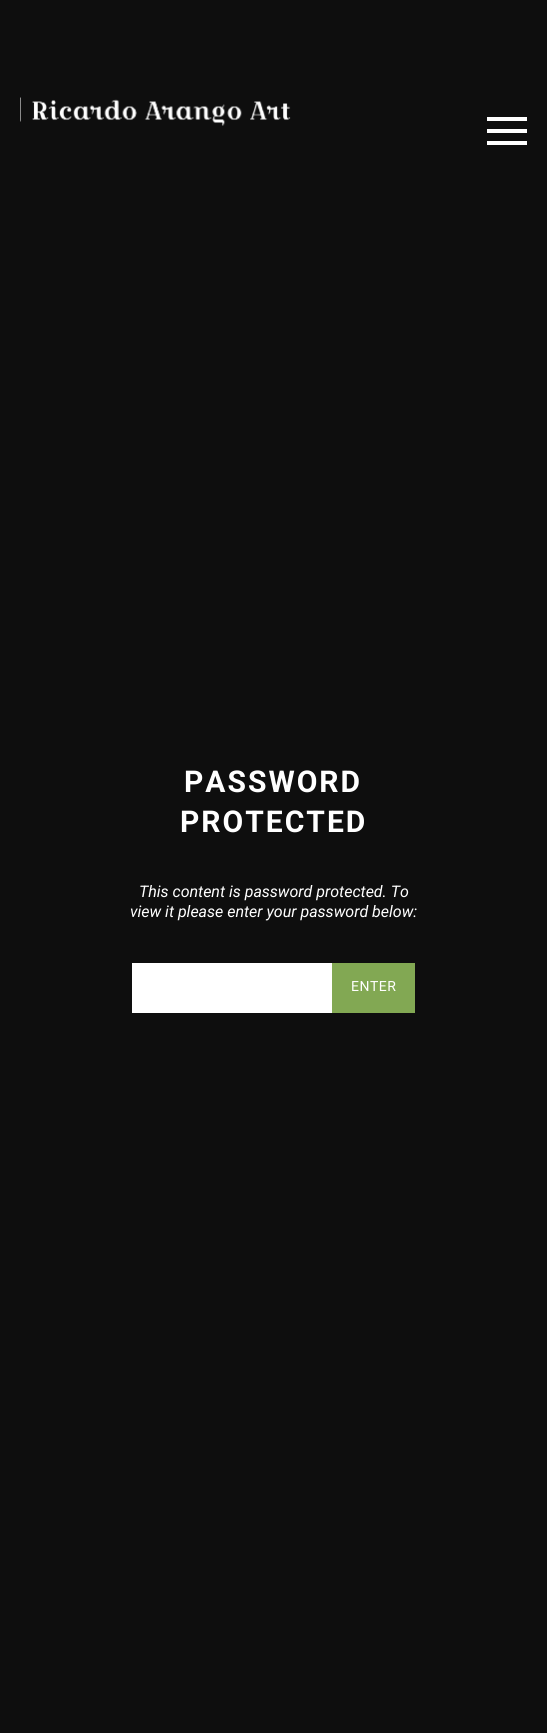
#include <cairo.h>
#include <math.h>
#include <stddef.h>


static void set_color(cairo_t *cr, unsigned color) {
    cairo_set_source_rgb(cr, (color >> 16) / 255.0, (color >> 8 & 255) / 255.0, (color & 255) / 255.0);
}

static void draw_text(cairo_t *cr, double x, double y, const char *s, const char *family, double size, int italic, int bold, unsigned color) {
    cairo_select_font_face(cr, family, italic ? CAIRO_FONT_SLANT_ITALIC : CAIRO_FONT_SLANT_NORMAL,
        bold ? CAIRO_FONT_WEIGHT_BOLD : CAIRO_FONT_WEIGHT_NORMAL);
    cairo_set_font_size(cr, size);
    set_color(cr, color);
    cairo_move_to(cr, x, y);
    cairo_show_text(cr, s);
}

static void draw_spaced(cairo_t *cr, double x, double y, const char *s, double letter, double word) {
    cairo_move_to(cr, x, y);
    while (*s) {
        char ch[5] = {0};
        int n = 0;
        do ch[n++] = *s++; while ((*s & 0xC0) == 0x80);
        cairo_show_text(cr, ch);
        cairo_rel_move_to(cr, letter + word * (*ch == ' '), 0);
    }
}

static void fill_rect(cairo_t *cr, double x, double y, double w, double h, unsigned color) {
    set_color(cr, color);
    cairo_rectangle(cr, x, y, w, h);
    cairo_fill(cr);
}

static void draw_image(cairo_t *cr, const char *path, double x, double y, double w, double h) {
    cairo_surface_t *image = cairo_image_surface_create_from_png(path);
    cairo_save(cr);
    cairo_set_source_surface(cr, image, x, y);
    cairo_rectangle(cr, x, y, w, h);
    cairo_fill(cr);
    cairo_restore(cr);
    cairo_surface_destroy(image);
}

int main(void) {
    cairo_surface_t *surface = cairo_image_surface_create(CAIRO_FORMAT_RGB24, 547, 1733);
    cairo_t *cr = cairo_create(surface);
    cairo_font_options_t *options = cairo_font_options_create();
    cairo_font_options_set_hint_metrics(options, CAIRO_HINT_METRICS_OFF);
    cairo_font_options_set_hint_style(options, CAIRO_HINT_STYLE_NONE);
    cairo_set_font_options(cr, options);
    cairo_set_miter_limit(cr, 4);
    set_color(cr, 0x0E0E0E);
    cairo_paint(cr);
    draw_image(cr, "assets/img1.png", 20, 97, 271, 29);
    fill_rect(cr, 487, 117, 40, 4, 0xFFFFFF);
    fill_rect(cr, 487, 129, 40, 4, 0xFFFFFF);
    fill_rect(cr, 487, 141, 40, 4, 0xFFFFFF);
    cairo_select_font_face(cr, "Roboto", CAIRO_FONT_SLANT_NORMAL, CAIRO_FONT_WEIGHT_BOLD);
    cairo_set_font_size(cr, 30);
    draw_spaced(cr, 184, 792, "PASSWORD", 2, 0);
    draw_spaced(cr, 180, 832, "PROTECTED", 2, 0);
    draw_text(cr, 139, 897, "This content is password protected. To", "Roboto", 16, 1, 0, 0xFFFFFF);
    draw_text(cr, 130, 917, "view it please enter your password below:", "Roboto", 16, 1, 0, 0xFFFFFF);
    fill_rect(cr, 132, 963, 200, 50, 0xFFFFFF);
    fill_rect(cr, 332, 963, 83, 50, 0x82A853);
    cairo_select_font_face(cr, "Roboto", CAIRO_FONT_SLANT_NORMAL, CAIRO_FONT_WEIGHT_NORMAL);
    cairo_set_font_size(cr, 14);
    set_color(cr, 0xFFFFFF);
    draw_spaced(cr, 351, 991, "ENTER", 0.5, 0);
    cairo_surface_write_to_png(surface, "output.png");
    cairo_font_options_destroy(options);
    cairo_destroy(cr);
    cairo_surface_destroy(surface);
    return 0;
}
